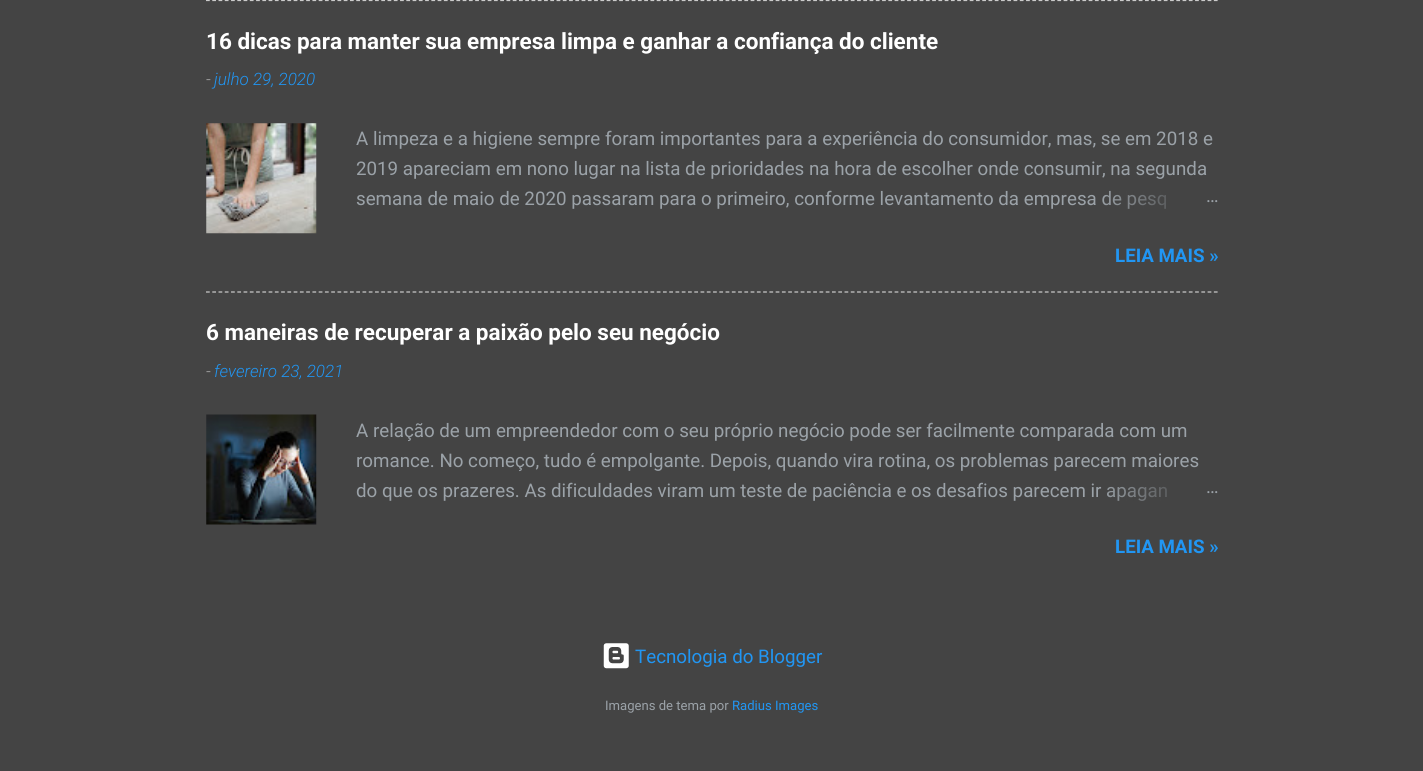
#include <cairo.h>
#include <math.h>
#include <stddef.h>


static void set_color(cairo_t *cr, unsigned color) {
    cairo_set_source_rgb(cr, (color >> 16) / 255.0, (color >> 8 & 255) / 255.0, (color & 255) / 255.0);
}

static void draw_text(cairo_t *cr, double x, double y, const char *s, const char *family, double size, int italic, int bold, unsigned color) {
    cairo_select_font_face(cr, family, italic ? CAIRO_FONT_SLANT_ITALIC : CAIRO_FONT_SLANT_NORMAL,
        bold ? CAIRO_FONT_WEIGHT_BOLD : CAIRO_FONT_WEIGHT_NORMAL);
    cairo_set_font_size(cr, size);
    set_color(cr, color);
    cairo_move_to(cr, x, y);
    cairo_show_text(cr, s);
}

static void draw_image(cairo_t *cr, const char *path, double x, double y, double w, double h) {
    cairo_surface_t *image = cairo_image_surface_create_from_png(path);
    cairo_save(cr);
    cairo_set_source_surface(cr, image, x, y);
    cairo_rectangle(cr, x, y, w, h);
    cairo_fill(cr);
    cairo_restore(cr);
    cairo_surface_destroy(image);
}

int main(void) {
    cairo_surface_t *surface = cairo_image_surface_create(CAIRO_FORMAT_RGB24, 1423, 771);
    cairo_t *cr = cairo_create(surface);
    cairo_font_options_t *options = cairo_font_options_create();
    cairo_font_options_set_hint_metrics(options, CAIRO_HINT_METRICS_OFF);
    cairo_font_options_set_hint_style(options, CAIRO_HINT_STYLE_NONE);
    cairo_set_font_options(cr, options);
    cairo_set_miter_limit(cr, 4);
    cairo_pattern_t *gradient;
    set_color(cr, 0x444444);
    cairo_paint(cr);
    cairo_new_path(cr);
    cairo_move_to(cr, 206, 0.5);
    cairo_line_to(cr, 1219, 0.5);
    set_color(cr, 0xCCCCCC);
    cairo_set_line_width(cr, 1.2);
    cairo_set_dash(cr, (double[]){3.75, 2.51}, 2, 0);
    cairo_stroke(cr);
    draw_text(cr, 206, 49, "16 dicas para manter sua empresa limpa e ganhar a confiança do cliente", "Roboto", 22.5, 0, 1, 0xFFFFFF);
    draw_text(cr, 206, 85, "-", "Roboto Light", 17, 1, 0, 0xA9A9A9);
    draw_text(cr, 214, 85, "julho 29, 2020", "Roboto Light", 17, 1, 0, 0x2196F3);
    draw_image(cr, "assets/img1.png", 206, 123, 111, 111);
    draw_text(cr, 356, 145, "A limpeza e a higiene sempre foram importantes para a experiência do consumidor, mas, se em 2018 e", "Roboto", 18.75, 0, 0, 0x9BA2A8);
    draw_text(cr, 356, 175, "2019 apareciam em nono lugar na lista de prioridades na hora de escolher onde consumir, na segunda", "Roboto", 18.75, 0, 0, 0x9BA2A8);
    draw_text(cr, 356, 205, "semana de maio de 2020 passaram para o primeiro, conforme levantamento da empresa de pesq", "Roboto", 18.75, 0, 0, 0x9BA2A8);
    gradient = cairo_pattern_create_linear(1219, 199, 1099, 199);
    cairo_pattern_add_color_stop_rgba(gradient, 0, 0.267, 0.267, 0.267, 1);
    cairo_pattern_add_color_stop_rgba(gradient, 0.2, 0.267, 0.267, 0.267, 1);
    cairo_pattern_add_color_stop_rgba(gradient, 1, 0.267, 0.267, 0.267, 0);
    cairo_set_source(cr, gradient);
    cairo_pattern_destroy(gradient);
    cairo_rectangle(cr, 1102, 191, 64, 18);
    cairo_fill(cr);
    draw_text(cr, 1206, 202, "…", "Roboto", 18.75, 0, 0, 0x9BA2A8);
    draw_text(cr, 1115, 262, "LEIA MAIS »", "Roboto", 18.75, 0, 1, 0x2196F3);
    cairo_new_path(cr);
    cairo_move_to(cr, 206, 292);
    cairo_line_to(cr, 1219, 292);
    set_color(cr, 0xCCCCCC);
    cairo_stroke(cr);
    draw_text(cr, 206, 340, "6 maneiras de recuperar a paixão pelo seu negócio", "Roboto", 22.5, 0, 1, 0xFFFFFF);
    draw_text(cr, 206, 377, "-", "Roboto Light", 17, 1, 0, 0xA9A9A9);
    draw_text(cr, 214, 377, "fevereiro 23, 2021", "Roboto Light", 17, 1, 0, 0x2196F3);
    draw_image(cr, "assets/img2.png", 206, 414, 111, 111);
    draw_text(cr, 356, 437, "A relação de um empreendedor com o seu próprio negócio pode ser facilmente comparada com um", "Roboto", 18.75, 0, 0, 0x9BA2A8);
    draw_text(cr, 356, 467, "romance. No começo, tudo é empolgante. Depois, quando vira rotina, os problemas parecem maiores", "Roboto", 18.75, 0, 0, 0x9BA2A8);
    draw_text(cr, 356, 497, "do que os prazeres. As dificuldades viram um teste de paciência e os desafios parecem ir apagan", "Roboto", 18.75, 0, 0, 0x9BA2A8);
    gradient = cairo_pattern_create_linear(1219, 490, 1099, 490);
    cairo_pattern_add_color_stop_rgba(gradient, 0, 0.267, 0.267, 0.267, 1);
    cairo_pattern_add_color_stop_rgba(gradient, 0.2, 0.267, 0.267, 0.267, 1);
    cairo_pattern_add_color_stop_rgba(gradient, 1, 0.267, 0.267, 0.267, 0);
    cairo_set_source(cr, gradient);
    cairo_pattern_destroy(gradient);
    cairo_rectangle(cr, 1107, 486, 60, 15);
    cairo_fill(cr);
    draw_text(cr, 1206, 493, "…", "Roboto", 18.75, 0, 0, 0x9BA2A8);
    draw_text(cr, 1115, 553, "LEIA MAIS »", "Roboto", 18.75, 0, 1, 0x2196F3);
    draw_image(cr, "assets/img3.png", 603, 643, 26, 26);
    draw_text(cr, 635, 663, "Tecnologia do Blogger", "Roboto", 18.75, 0, 0, 0x2196F3);
    draw_text(cr, 605, 710, "Imagens de tema por", "Roboto", 13.1, 0, 0, 0x9BA2A8);
    draw_text(cr, 732, 710, "Radius Images", "Roboto", 13.1, 0, 0, 0x2196F3);
    cairo_surface_write_to_png(surface, "output.png");
    cairo_font_options_destroy(options);
    cairo_destroy(cr);
    cairo_surface_destroy(surface);
    return 0;
}
